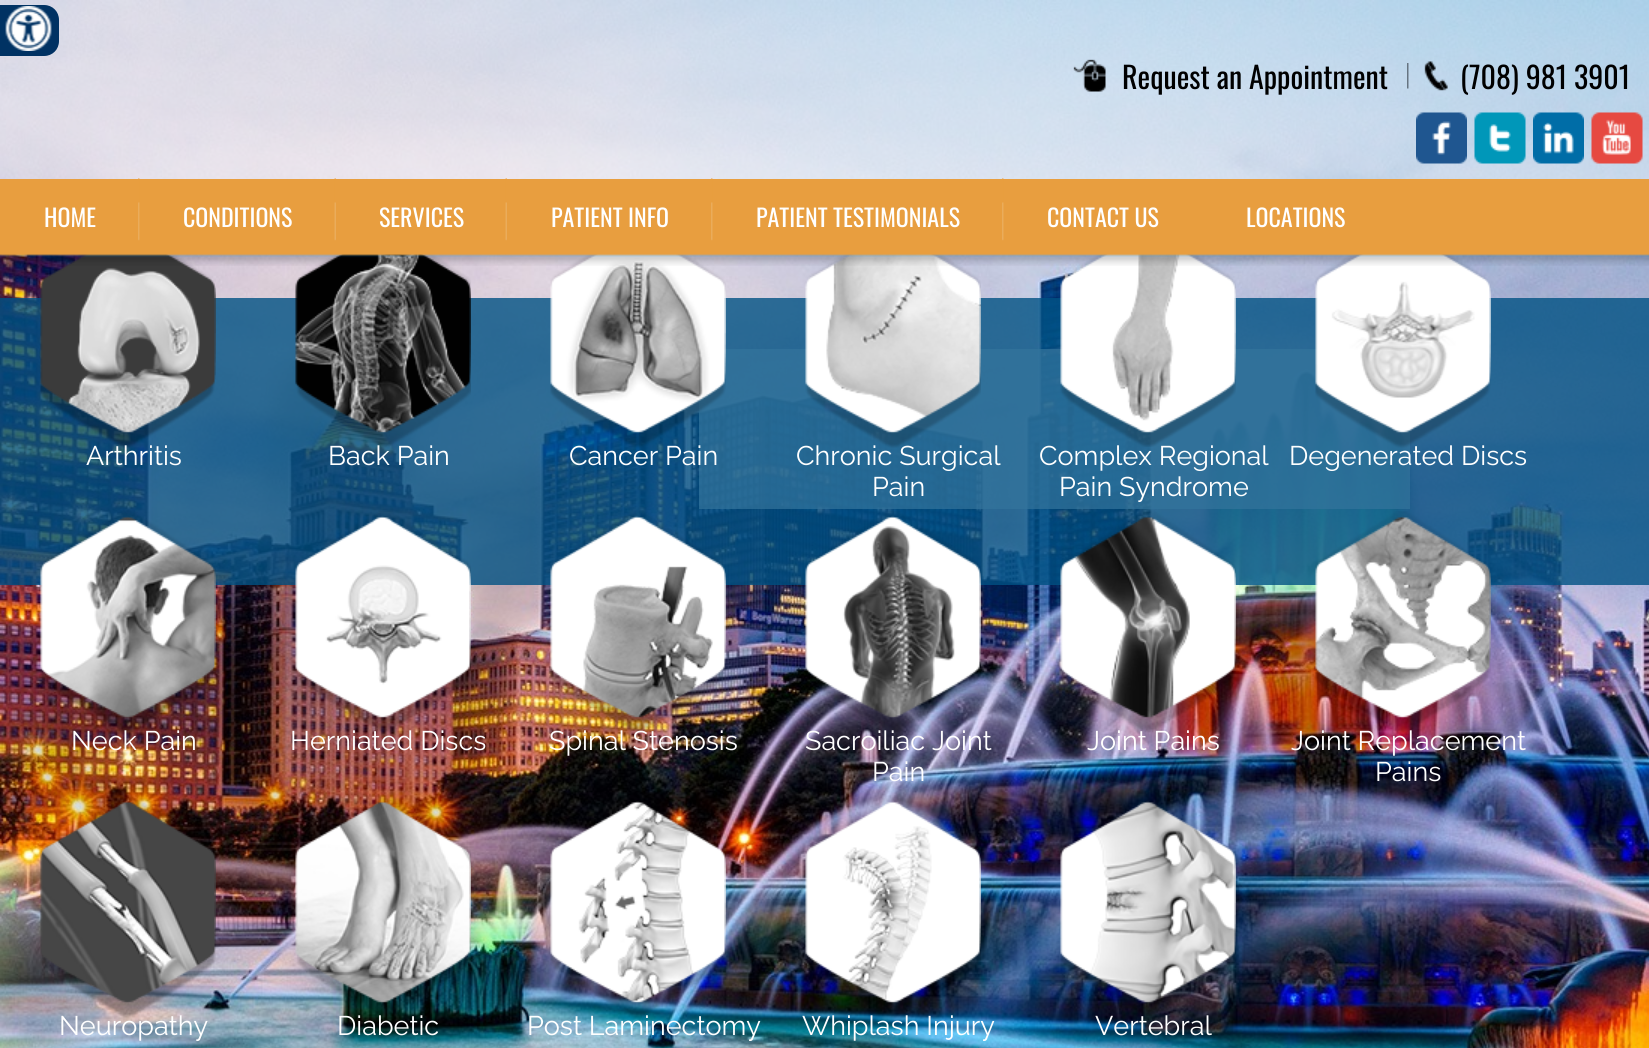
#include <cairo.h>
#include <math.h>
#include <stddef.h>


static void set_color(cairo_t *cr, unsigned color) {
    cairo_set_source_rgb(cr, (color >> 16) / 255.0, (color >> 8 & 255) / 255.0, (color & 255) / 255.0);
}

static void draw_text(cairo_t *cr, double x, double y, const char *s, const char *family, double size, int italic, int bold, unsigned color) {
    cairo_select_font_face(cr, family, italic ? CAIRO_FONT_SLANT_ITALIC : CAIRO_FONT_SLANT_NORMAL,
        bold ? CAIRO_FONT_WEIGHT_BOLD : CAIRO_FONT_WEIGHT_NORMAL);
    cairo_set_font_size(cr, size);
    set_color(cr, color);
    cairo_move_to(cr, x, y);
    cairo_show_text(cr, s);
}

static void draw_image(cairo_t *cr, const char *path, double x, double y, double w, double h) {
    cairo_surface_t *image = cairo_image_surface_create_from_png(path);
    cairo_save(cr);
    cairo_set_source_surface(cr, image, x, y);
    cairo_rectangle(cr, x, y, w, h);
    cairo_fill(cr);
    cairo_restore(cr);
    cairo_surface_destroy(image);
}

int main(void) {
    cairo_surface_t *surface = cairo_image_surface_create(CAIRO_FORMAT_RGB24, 1649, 1048);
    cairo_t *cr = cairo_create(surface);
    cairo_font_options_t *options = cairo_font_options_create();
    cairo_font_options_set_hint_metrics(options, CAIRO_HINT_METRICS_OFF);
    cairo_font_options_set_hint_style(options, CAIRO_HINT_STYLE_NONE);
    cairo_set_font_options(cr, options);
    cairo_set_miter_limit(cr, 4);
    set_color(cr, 0xFFFFFF);
    cairo_paint(cr);
    draw_image(cr, "assets/img1.png", 0, 0, 1649, 1048);
    cairo_set_source_rgba(cr, 1, 1, 1, 0.5);
    cairo_rectangle(cr, 0, 0, 1649, 179);
    cairo_fill(cr);
    set_color(cr, 0x003263);
    cairo_new_path(cr);
    cairo_move_to(cr, -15, 5);
    cairo_line_to(cr, 44, 5);
    cairo_curve_to(cr, 52.5, 5, 59, 11.5, 59, 20);
    cairo_line_to(cr, 59, 41);
    cairo_curve_to(cr, 59, 49.5, 52.5, 56, 44, 56);
    cairo_line_to(cr, -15, 56);
    cairo_close_path(cr);
    cairo_fill(cr);
    draw_image(cr, "assets/img2.png", 5, 6, 47, 45);
    draw_image(cr, "assets/img3.png", 1407, 63, 2, 26);
    draw_image(cr, "assets/img4.png", 1073, 59, 33, 33);
    draw_text(cr, 1122, 89, "Request an Appointment", "Oswald", 30, 0, 0, 0x000000);
    draw_image(cr, "assets/img5.png", 1424, 61, 24, 30);
    draw_text(cr, 1460, 89, "(708) 981 3901", "Oswald", 30, 0, 0, 0x000000);
    draw_image(cr, "assets/img6.png", 1416, 112, 51, 52);
    draw_image(cr, "assets/img7.png", 1474, 112, 52, 52);
    draw_image(cr, "assets/img8.png", 1533, 112, 51, 52);
    draw_image(cr, "assets/img9.png", 1591, 112, 52, 52);
    cairo_set_source_rgba(cr, 1, 1, 1, 0.71);
    cairo_rectangle(cr, 699, 349, 711, 160);
    cairo_fill(cr);
    cairo_set_source_rgba(cr, 0, 0.322, 0.514, 0.8);
    cairo_rectangle(cr, 0, 298, 1649, 287);
    cairo_fill(cr);
    draw_image(cr, "assets/img16.png", 40, 254, 176, 194);
    draw_image(cr, "assets/img17.png", 295, 254, 176, 194);
    draw_image(cr, "assets/img18.png", 550, 254, 176, 194);
    draw_image(cr, "assets/img19.png", 805, 254, 176, 194);
    draw_image(cr, "assets/img20.png", 1060, 254, 176, 193);
    draw_image(cr, "assets/img21.png", 1315, 254, 176, 194);
    draw_image(cr, "assets/img10.png", 0, 179, 1649, 87);
    draw_image(cr, "assets/img11.png", 138, 178, 2, 63);
    draw_text(cr, 44, 227, "HOME", "Oswald", 24, 0, 0, 0xFFFFFF);
    draw_image(cr, "assets/img12.png", 334, 178, 2, 63);
    draw_text(cr, 183, 227, "CONDITIONS", "Oswald", 24, 0, 0, 0xFFFFFF);
    draw_image(cr, "assets/img13.png", 505, 178, 2, 63);
    draw_text(cr, 379, 227, "SERVICES", "Oswald", 24, 0, 0, 0xFFFFFF);
    draw_image(cr, "assets/img14.png", 711, 178, 2, 63);
    draw_text(cr, 551, 227, "PATIENT INFO", "Oswald", 24, 0, 0, 0xFFFFFF);
    draw_image(cr, "assets/img15.png", 1002, 178, 2, 63);
    draw_text(cr, 756, 227, "PATIENT TESTIMONIALS", "Oswald", 24, 0, 0, 0xFFFFFF);
    draw_text(cr, 1047, 227, "CONTACT US", "Oswald", 24, 0, 0, 0xFFFFFF);
    draw_text(cr, 1246, 227, "LOCATIONS", "Oswald", 24, 0, 0, 0xFFFFFF);
    draw_text(cr, 86, 465, "Arthritis", "Raleway", 27, 0, 0, 0xFFFFFF);
    draw_text(cr, 328, 465, "Back Pain", "Raleway", 27, 0, 0, 0xFFFFFF);
    draw_text(cr, 569, 465, "Cancer Pain", "Raleway", 27, 0, 0, 0xFFFFFF);
    draw_text(cr, 796, 465, "Chronic Surgical", "Raleway", 27, 0, 0, 0xFFFFFF);
    draw_text(cr, 872, 496, "Pain", "Raleway", 27, 0, 0, 0xFFFFFF);
    draw_text(cr, 1039, 465, "Complex Regional", "Raleway", 27, 0, 0, 0xFFFFFF);
    draw_text(cr, 1059, 496, "Pain Syndrome", "Raleway", 27, 0, 0, 0xFFFFFF);
    draw_text(cr, 1289, 465, "Degenerated Discs", "Raleway", 27, 0, 0, 0xFFFFFF);
    draw_image(cr, "assets/img22.png", 40, 510, 176, 222);
    draw_text(cr, 71, 750, "Neck Pain", "Raleway", 27, 0, 0, 0xFFFFFF);
    draw_image(cr, "assets/img23.png", 295, 511, 176, 222);
    draw_text(cr, 290, 750, "Herniated Discs", "Raleway", 27, 0, 0, 0xFFFFFF);
    draw_image(cr, "assets/img24.png", 550, 510, 176, 223);
    draw_text(cr, 549, 750, "Spinal Stenosis", "Raleway", 27, 0, 0, 0xFFFFFF);
    draw_image(cr, "assets/img25.png", 805, 511, 176, 221);
    draw_text(cr, 805, 750, "Sacroiliac Joint", "Raleway", 27, 0, 0, 0xFFFFFF);
    draw_text(cr, 872, 781, "Pain", "Raleway", 27, 0, 0, 0xFFFFFF);
    draw_image(cr, "assets/img26.png", 1060, 510, 176, 223);
    draw_text(cr, 1087, 750, "Joint Pains", "Raleway", 27, 0, 0, 0xFFFFFF);
    draw_image(cr, "assets/img27.png", 1315, 511, 176, 222);
    draw_text(cr, 1291, 750, "Joint Replacement", "Raleway", 27, 0, 0, 0xFFFFFF);
    draw_text(cr, 1375, 781, "Pains", "Raleway", 27, 0, 0, 0xFFFFFF);
    draw_image(cr, "assets/img28.png", 40, 795, 176, 223);
    draw_text(cr, 59, 1035, "Neuropathy", "Raleway", 27, 0, 0, 0xFFFFFF);
    draw_image(cr, "assets/img29.png", 295, 795, 176, 221);
    draw_text(cr, 337, 1035, "Diabetic", "Raleway", 27, 0, 0, 0xFFFFFF);
    draw_image(cr, "assets/img30.png", 550, 801, 176, 217);
    draw_text(cr, 527, 1035, "Post Laminectomy", "Raleway", 27, 0, 0, 0xFFFFFF);
    draw_image(cr, "assets/img31.png", 805, 795, 176, 223);
    draw_text(cr, 802, 1035, "Whiplash Injury", "Raleway", 27, 0, 0, 0xFFFFFF);
    draw_image(cr, "assets/img32.png", 1060, 801, 176, 215);
    draw_text(cr, 1095, 1035, "Vertebral", "Raleway", 27, 0, 0, 0xFFFFFF);
    cairo_surface_write_to_png(surface, "output.png");
    cairo_font_options_destroy(options);
    cairo_destroy(cr);
    cairo_surface_destroy(surface);
    return 0;
}
